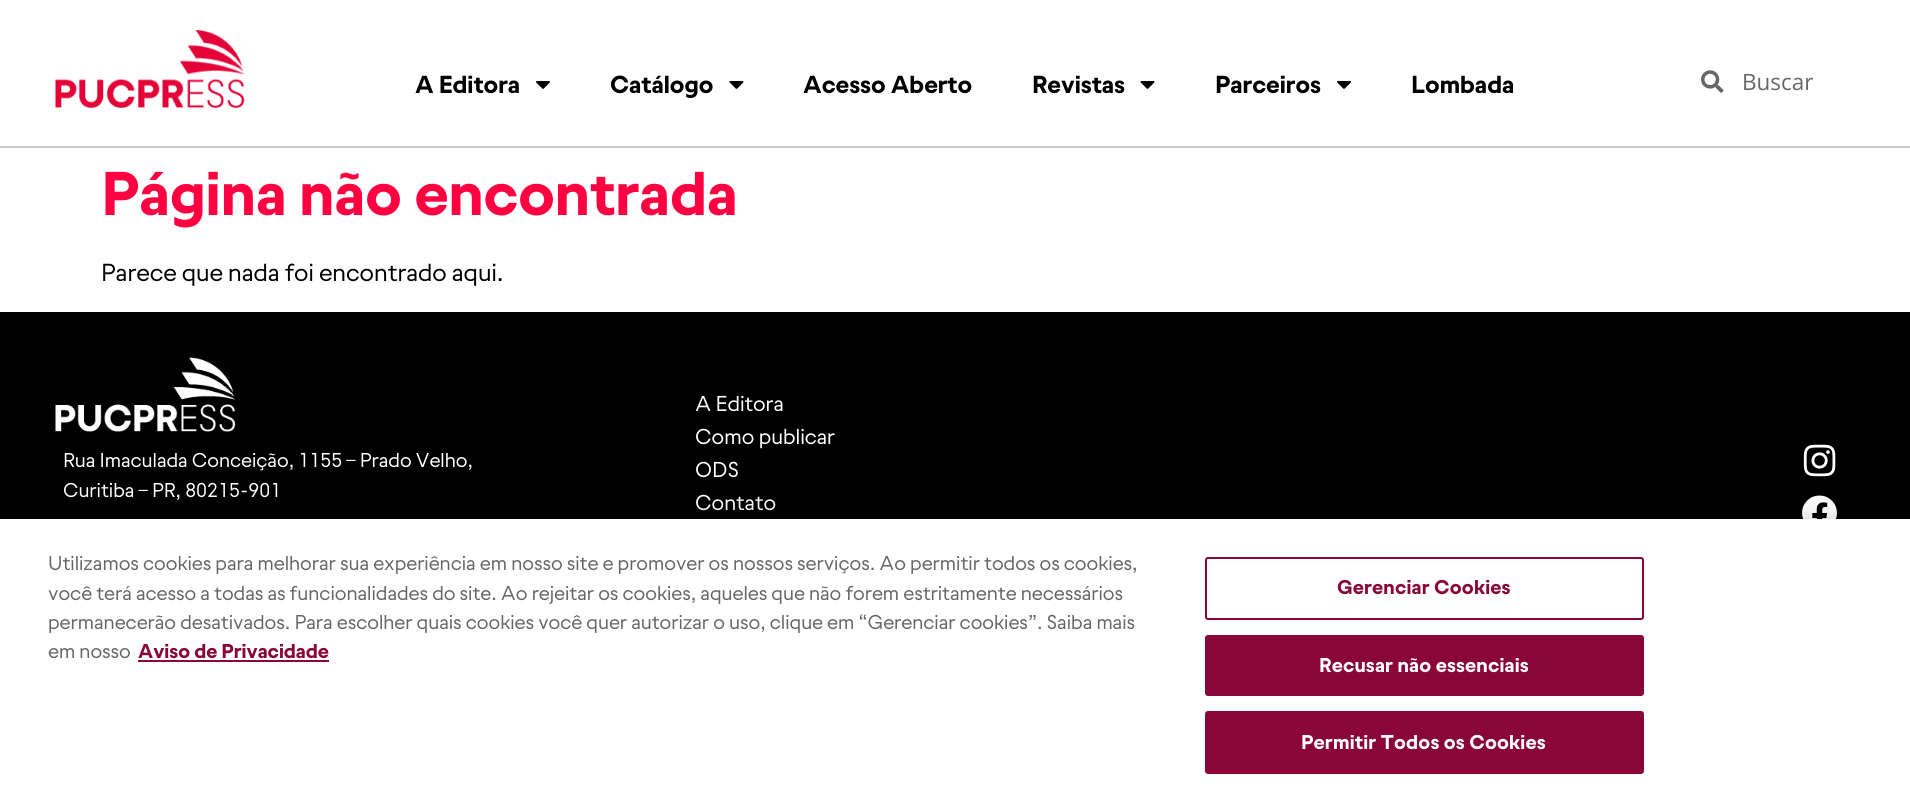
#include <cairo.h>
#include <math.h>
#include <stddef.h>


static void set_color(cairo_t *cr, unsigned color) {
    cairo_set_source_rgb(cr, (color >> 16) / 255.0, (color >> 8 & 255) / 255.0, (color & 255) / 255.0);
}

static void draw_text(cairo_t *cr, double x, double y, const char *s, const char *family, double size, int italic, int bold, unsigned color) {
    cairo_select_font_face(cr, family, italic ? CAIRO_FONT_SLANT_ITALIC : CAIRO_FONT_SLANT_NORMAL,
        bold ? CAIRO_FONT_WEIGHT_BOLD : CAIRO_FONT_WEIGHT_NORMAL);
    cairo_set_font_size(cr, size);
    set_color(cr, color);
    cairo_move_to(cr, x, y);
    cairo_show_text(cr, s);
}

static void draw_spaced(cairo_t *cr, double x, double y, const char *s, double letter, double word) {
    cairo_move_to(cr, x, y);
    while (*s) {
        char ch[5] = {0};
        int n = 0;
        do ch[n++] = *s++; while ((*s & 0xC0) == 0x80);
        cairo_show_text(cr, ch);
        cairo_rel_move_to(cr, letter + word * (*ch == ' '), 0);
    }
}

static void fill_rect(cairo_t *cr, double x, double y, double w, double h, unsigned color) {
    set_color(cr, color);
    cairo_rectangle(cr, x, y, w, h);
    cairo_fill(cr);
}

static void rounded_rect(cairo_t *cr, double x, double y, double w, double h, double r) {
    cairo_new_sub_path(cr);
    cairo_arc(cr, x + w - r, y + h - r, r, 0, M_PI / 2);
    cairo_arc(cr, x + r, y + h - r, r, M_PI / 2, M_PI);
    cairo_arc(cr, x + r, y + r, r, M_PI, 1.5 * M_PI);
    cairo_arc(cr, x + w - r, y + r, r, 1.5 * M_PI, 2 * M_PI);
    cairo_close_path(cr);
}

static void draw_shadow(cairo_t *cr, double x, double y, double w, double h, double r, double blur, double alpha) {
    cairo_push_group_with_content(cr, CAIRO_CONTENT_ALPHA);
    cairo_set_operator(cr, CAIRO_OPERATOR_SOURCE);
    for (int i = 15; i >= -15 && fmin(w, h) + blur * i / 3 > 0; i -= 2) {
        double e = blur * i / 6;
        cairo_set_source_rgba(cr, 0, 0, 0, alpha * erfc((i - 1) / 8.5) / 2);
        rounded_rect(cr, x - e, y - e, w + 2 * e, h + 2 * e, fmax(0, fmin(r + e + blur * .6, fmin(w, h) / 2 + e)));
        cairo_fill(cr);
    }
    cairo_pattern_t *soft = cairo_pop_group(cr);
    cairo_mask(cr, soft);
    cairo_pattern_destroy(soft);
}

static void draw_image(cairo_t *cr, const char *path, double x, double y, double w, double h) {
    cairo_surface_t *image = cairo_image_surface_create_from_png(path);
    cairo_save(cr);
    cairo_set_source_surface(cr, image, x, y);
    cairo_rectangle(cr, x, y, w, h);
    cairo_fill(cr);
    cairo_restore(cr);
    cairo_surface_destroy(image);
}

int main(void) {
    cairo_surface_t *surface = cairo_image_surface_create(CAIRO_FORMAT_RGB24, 1910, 804);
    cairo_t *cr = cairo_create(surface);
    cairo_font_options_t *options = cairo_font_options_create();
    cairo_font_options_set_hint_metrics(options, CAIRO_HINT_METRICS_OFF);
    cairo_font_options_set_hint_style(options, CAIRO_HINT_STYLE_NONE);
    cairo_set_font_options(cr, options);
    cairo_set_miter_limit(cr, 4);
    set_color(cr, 0xFFFFFF);
    cairo_paint(cr);
    fill_rect(cr, 0, 146, 1910, 2, 0xCECDCD);
    draw_image(cr, "assets/img1.png", 55, 30, 190, 78);
    draw_text(cr, 415, 93, "A Editora", "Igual", 24, 0, 1, 0x000000);
    draw_image(cr, "assets/img2.png", 536, 81, 14, 8);
    draw_text(cr, 610, 93, "Catálogo", "Igual", 24, 0, 1, 0x000000);
    draw_image(cr, "assets/img3.png", 729, 81, 15, 8);
    draw_text(cr, 803, 93, "Acesso Aberto", "Igual", 24, 0, 1, 0x000000);
    draw_text(cr, 1032, 93, "Revistas", "Igual", 24, 0, 1, 0x000000);
    draw_image(cr, "assets/img3.png", 1140, 81, 15, 8);
    draw_text(cr, 1215, 93, "Parceiros", "Igual", 24, 0, 1, 0x000000);
    draw_image(cr, "assets/img2.png", 1337, 81, 14, 8);
    draw_text(cr, 1411, 93, "Lombada", "Igual", 24, 0, 1, 0x000000);
    draw_image(cr, "assets/img4.png", 1701, 70, 23, 23);
    draw_text(cr, 1742, 90, "Buscar", "Open Sans", 22.5, 0, 0, 0x666666);
    draw_text(cr, 101, 215, "Página não encontrada", "Igual", 60, 0, 1, 0xFF0040);
    draw_text(cr, 101, 281, "Parece que nada foi encontrado aqui.", "Igual", 24, 0, 0, 0x000000);
    fill_rect(cr, 0, 312, 1910, 207, 0x000000);
    draw_image(cr, "assets/img5.png", 55, 357, 181, 75);
    draw_text(cr, 63, 467, "Rua Imaculada Conceição, 1155 – Prado Velho,", "Igual", 19.5, 0, 0, 0xFFFFFF);
    draw_text(cr, 63, 497, "Curitiba – PR, 80215-901", "Igual", 19.5, 0, 0, 0xFFFFFF);
    draw_text(cr, 695, 411, "A Editora", "Igual", 21, 0, 0, 0xFFFFFF);
    draw_text(cr, 695, 444, "Como publicar", "Igual", 21, 0, 0, 0xFFFFFF);
    draw_text(cr, 695, 477, "ODS", "Igual", 21, 0, 0, 0xFFFFFF);
    draw_text(cr, 695, 510, "Contato", "Igual", 21, 0, 0, 0xFFFFFF);
    draw_image(cr, "assets/img6.png", 1803, 444, 33, 33);
    draw_image(cr, "assets/img7.png", 1802, 495, 35, 24);
    set_color(cr, 0x000000);
    draw_shadow(cr, 0, 519, 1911, 285, 0, 13.5, 0.2);
    fill_rect(cr, 0, 519, 1910, 285, 0xFFFFFF);
    draw_text(cr, 48, 570, "Utilizamos cookies para melhorar sua experiência em nosso site e promover os nossos serviços. Ao permitir todos os cookies,", "Igual", 19.5, 0, 0, 0x666666);
    draw_text(cr, 48, 600, "você terá acesso a todas as funcionalidades do site. Ao rejeitar os cookies, aqueles que não forem estritamente necessários", "Igual", 19.5, 0, 0, 0x666666);
    draw_text(cr, 48, 629, "permanecerão desativados. Para escolher quais cookies você quer autorizar o uso, clique em “Gerenciar cookies”. Saiba mais", "Igual", 19.5, 0, 0, 0x666666);
    draw_text(cr, 48, 658, "em nosso", "Igual", 19.5, 0, 0, 0x666666);
    draw_text(cr, 138, 658, "Aviso de Privacidade", "Igual", 19.5, 0, 1, 0x8A0538);
    fill_rect(cr, 138, 660, 191, 2, 0x8A0538);
    rounded_rect(cr, 1206, 558, 437, 61, 2);
    cairo_stroke(cr);
    draw_spaced(cr, 1337, 594, "Gerenciar Cookies", 0.2, 0);
    rounded_rect(cr, 1206, 636, 437, 59, 2);
    cairo_fill_preserve(cr);
    cairo_stroke(cr);
    set_color(cr, 0xFFFFFF);
    draw_spaced(cr, 1319, 672, "Recusar não essenciais", 0.2, 0);
    set_color(cr, 0x8A0538);
    rounded_rect(cr, 1206, 712, 437, 61, 2);
    cairo_fill_preserve(cr);
    cairo_stroke(cr);
    set_color(cr, 0xFFFFFF);
    draw_spaced(cr, 1301, 749, "Permitir Todos os Cookies", 0.2, 0);
    cairo_surface_write_to_png(surface, "output.png");
    cairo_font_options_destroy(options);
    cairo_destroy(cr);
    cairo_surface_destroy(surface);
    return 0;
}
